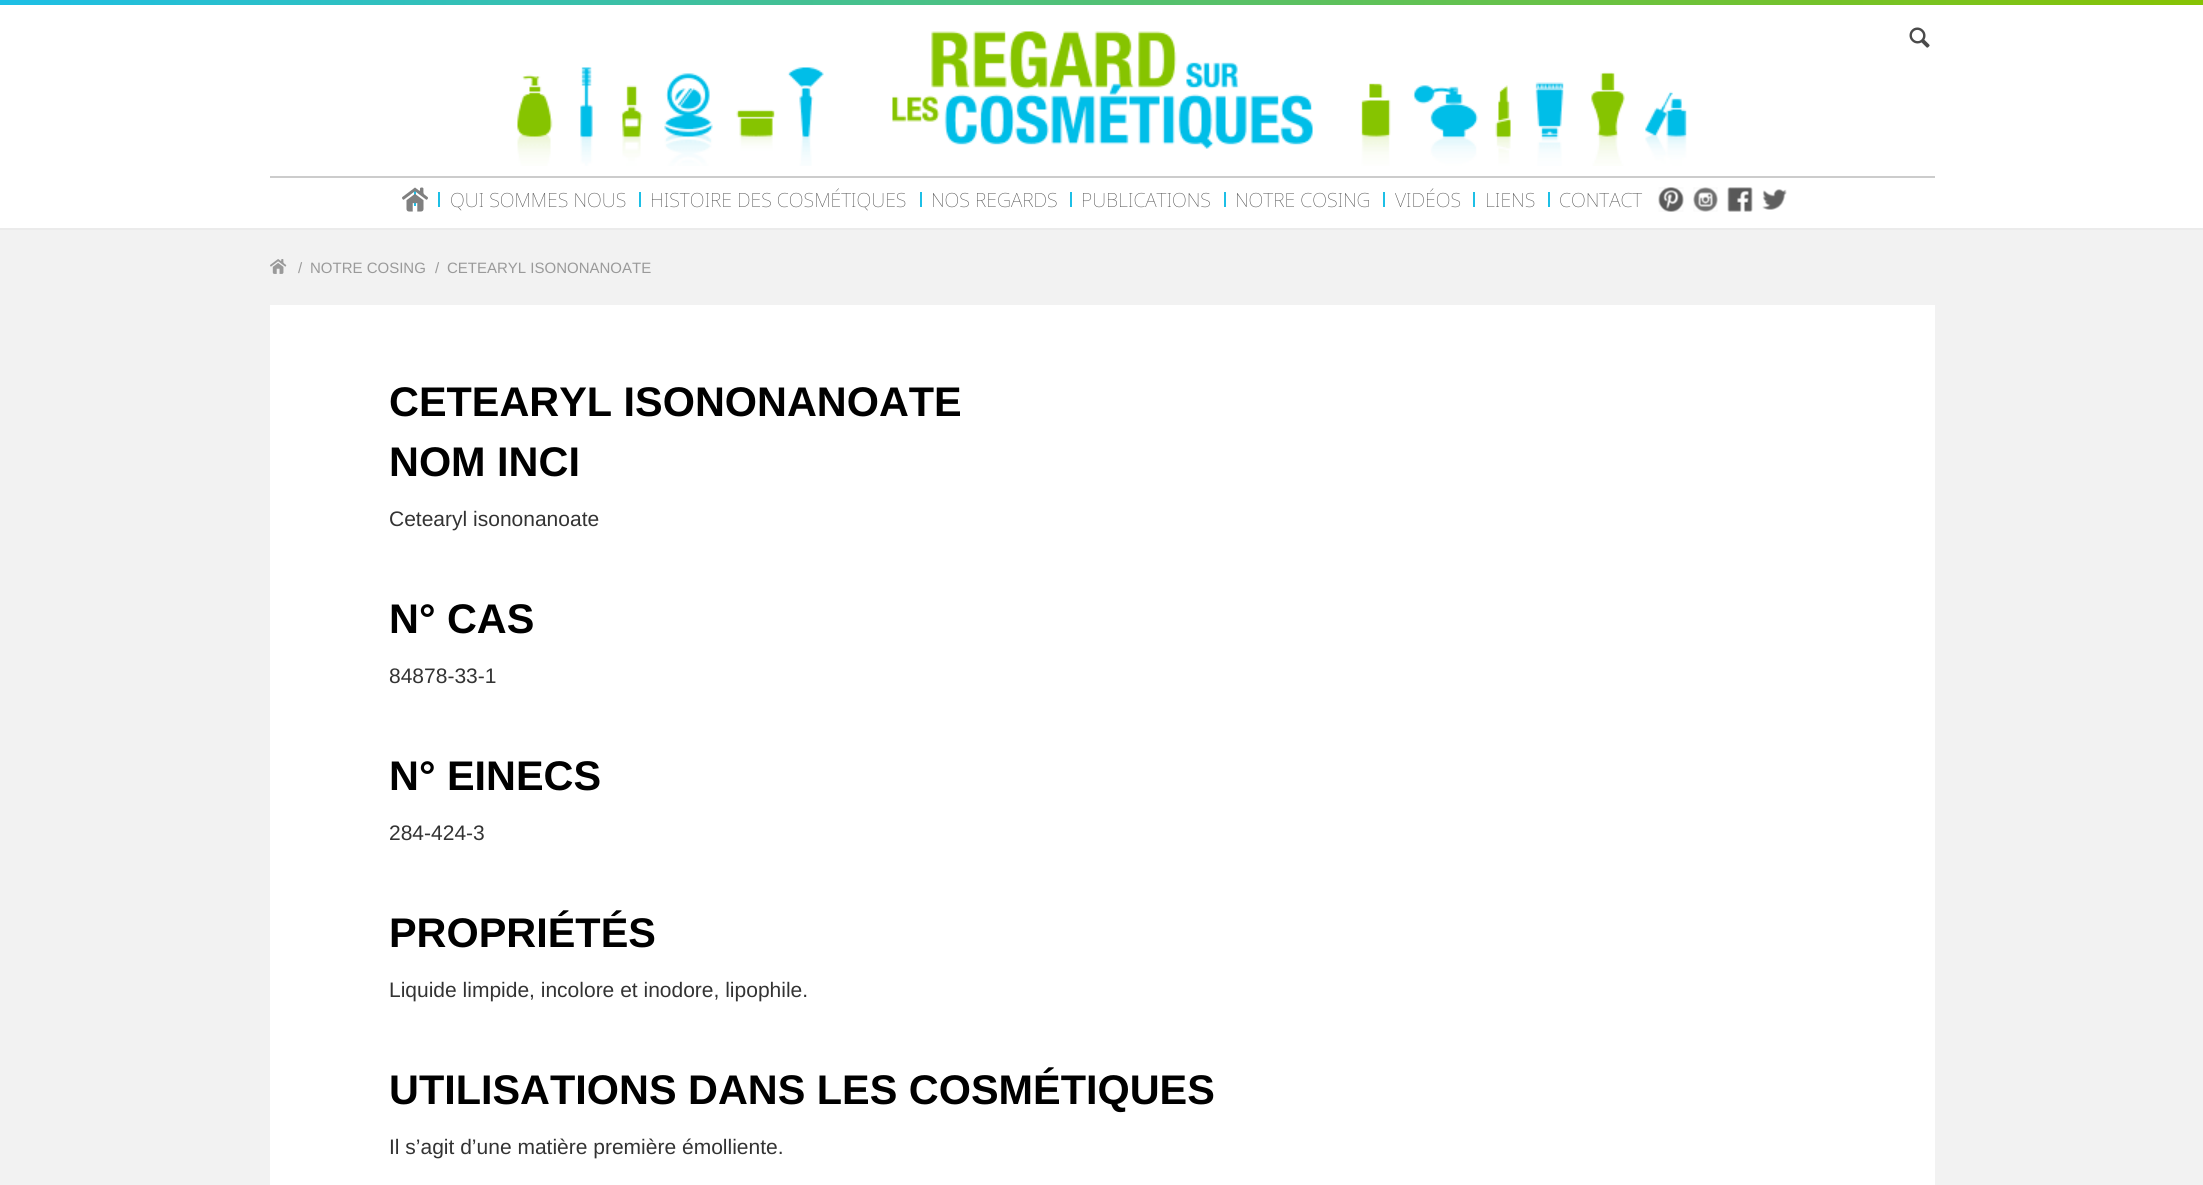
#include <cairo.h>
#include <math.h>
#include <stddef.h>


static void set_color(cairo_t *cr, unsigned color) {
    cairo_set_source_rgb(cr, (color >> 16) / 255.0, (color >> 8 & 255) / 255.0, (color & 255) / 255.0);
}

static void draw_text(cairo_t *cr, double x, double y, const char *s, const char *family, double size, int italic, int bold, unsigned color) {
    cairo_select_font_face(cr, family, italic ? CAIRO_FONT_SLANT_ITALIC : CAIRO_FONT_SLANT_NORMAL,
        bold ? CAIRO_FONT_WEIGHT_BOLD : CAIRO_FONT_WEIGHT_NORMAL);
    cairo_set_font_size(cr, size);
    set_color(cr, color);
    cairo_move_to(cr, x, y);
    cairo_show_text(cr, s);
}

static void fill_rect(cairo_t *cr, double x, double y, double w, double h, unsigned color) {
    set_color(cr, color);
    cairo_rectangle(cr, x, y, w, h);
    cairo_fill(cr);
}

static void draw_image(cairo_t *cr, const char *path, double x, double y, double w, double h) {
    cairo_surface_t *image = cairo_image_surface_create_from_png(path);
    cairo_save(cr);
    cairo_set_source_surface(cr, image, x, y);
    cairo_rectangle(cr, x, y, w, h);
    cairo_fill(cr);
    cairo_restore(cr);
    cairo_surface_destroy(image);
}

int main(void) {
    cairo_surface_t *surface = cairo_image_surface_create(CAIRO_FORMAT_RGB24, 2203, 1185);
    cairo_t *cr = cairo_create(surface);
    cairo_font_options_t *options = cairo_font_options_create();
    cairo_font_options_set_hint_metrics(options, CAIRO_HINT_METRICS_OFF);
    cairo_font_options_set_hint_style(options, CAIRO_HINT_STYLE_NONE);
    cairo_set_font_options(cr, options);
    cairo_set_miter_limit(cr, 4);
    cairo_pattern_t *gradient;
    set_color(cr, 0xFFFFFF);
    cairo_paint(cr);
    gradient = cairo_pattern_create_linear(0, 2.3, 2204, 2.2);
    cairo_pattern_add_color_stop_rgba(gradient, 0, 0.114, 0.749, 0.902, 1);
    cairo_pattern_add_color_stop_rgba(gradient, 1, 0.529, 0.765, 0.012, 1);
    cairo_set_source(cr, gradient);
    cairo_pattern_destroy(gradient);
    cairo_rectangle(cr, 0, 0, 2203, 5);
    cairo_fill(cr);
    draw_image(cr, "assets/img1.png", 517, 67, 1170, 99);
    draw_image(cr, "assets/img2.png", 892, 31, 421, 118);
    fill_rect(cr, 270, 176, 1665, 2, 0xCCCCCC);
    draw_image(cr, "assets/img3.png", 1909, 27, 21, 21);
    fill_rect(cr, 414, 191, 2, 15, 0x1DBFE6);
    draw_image(cr, "assets/img4.png", 402, 187, 26, 25);
    fill_rect(cr, 438, 192, 2, 15, 0x1DBFE6);
    draw_text(cr, 450, 207, "QUI SOMMES NOUS", "Noto Sans Thin", 19.5, 0, 0, 0x4A4A4A);
    fill_rect(cr, 639, 192, 2, 15, 0x1DBFE6);
    draw_text(cr, 650, 207, "HISTOIRE DES COSMÉTIQUES", "Noto Sans Thin", 19.5, 0, 0, 0x4A4A4A);
    fill_rect(cr, 920, 192, 2, 15, 0x1DBFE6);
    draw_text(cr, 931, 207, "NOS REGARDS", "Noto Sans Thin", 19.5, 0, 0, 0x4A4A4A);
    fill_rect(cr, 1070, 192, 2, 15, 0x1DBFE6);
    draw_text(cr, 1081, 207, "PUBLICATIONS", "Noto Sans Thin", 19.5, 0, 0, 0x4A4A4A);
    fill_rect(cr, 1224, 192, 2, 15, 0x1DBFE6);
    draw_text(cr, 1235, 207, "NOTRE COSING", "Noto Sans Thin", 19.5, 0, 0, 0x4A4A4A);
    fill_rect(cr, 1383, 192, 2, 15, 0x1DBFE6);
    draw_text(cr, 1395, 207, "VIDÉOS", "Noto Sans Thin", 19.5, 0, 0, 0x4A4A4A);
    fill_rect(cr, 1473, 192, 2, 15, 0x1DBFE6);
    draw_text(cr, 1485, 207, "LIENS", "Noto Sans Thin", 19.5, 0, 0, 0x4A4A4A);
    fill_rect(cr, 1548, 192, 2, 15, 0x1DBFE6);
    draw_text(cr, 1559, 207, "CONTACT", "Noto Sans Thin", 19.5, 0, 0, 0x4A4A4A);
    draw_image(cr, "assets/img5.png", 1658, 187, 26, 25);
    draw_image(cr, "assets/img6.png", 1693, 187, 25, 25);
    draw_image(cr, "assets/img7.png", 1727, 187, 26, 25);
    draw_image(cr, "assets/img8.png", 1762, 189, 25, 21);
    fill_rect(cr, 0, 230, 2203, 955, 0xF2F2F2);
    draw_image(cr, "assets/img9.png", 270, 259, 17, 15);
    draw_text(cr, 298, 273, "/", "Liberation Sans", 15, 0, 0, 0x9A9A9A);
    draw_text(cr, 310, 273, "NOTRE COSING", "Liberation Sans", 15, 0, 0, 0x9A9A9A);
    draw_text(cr, 435, 273, "/", "Liberation Sans", 15, 0, 0, 0x9A9A9A);
    draw_text(cr, 447, 273, "CETEARYL ISONONANOATE", "Liberation Sans", 15, 0, 0, 0x9A9A9A);
    fill_rect(cr, 0, 228, 2203, 2, 0xEBEBEB);
    fill_rect(cr, 270, 305, 1665, 880, 0xFFFFFF);
    draw_text(cr, 389, 416, "CETEARYL ISONONANOATE", "Liberation Sans", 41.4, 0, 1, 0x000000);
    draw_text(cr, 389, 476, "NOM INCI", "Liberation Sans", 41.4, 0, 1, 0x000000);
    draw_text(cr, 389, 526, "Cetearyl isononanoate", "Liberation Sans", 21, 0, 0, 0x333333);
    draw_text(cr, 389, 633, "N° CAS", "Liberation Sans", 41.4, 0, 1, 0x000000);
    draw_text(cr, 389, 683, "84878-33-1", "Liberation Sans", 21, 0, 0, 0x333333);
    draw_text(cr, 389, 790, "N° EINECS", "Liberation Sans", 41.4, 0, 1, 0x000000);
    draw_text(cr, 389, 840, "284-424-3", "Liberation Sans", 21, 0, 0, 0x333333);
    draw_text(cr, 389, 947, "PROPRIÉTÉS", "Liberation Sans", 41.4, 0, 1, 0x000000);
    draw_text(cr, 389, 997, "Liquide limpide, incolore et inodore, lipophile.", "Liberation Sans", 21, 0, 0, 0x333333);
    draw_text(cr, 389, 1104, "UTILISATIONS DANS LES COSMÉTIQUES", "Liberation Sans", 41.4, 0, 1, 0x000000);
    draw_text(cr, 389, 1154, "Il s’agit d’une matière première émolliente.", "Liberation Sans", 21, 0, 0, 0x333333);
    cairo_surface_write_to_png(surface, "output.png");
    cairo_font_options_destroy(options);
    cairo_destroy(cr);
    cairo_surface_destroy(surface);
    return 0;
}
